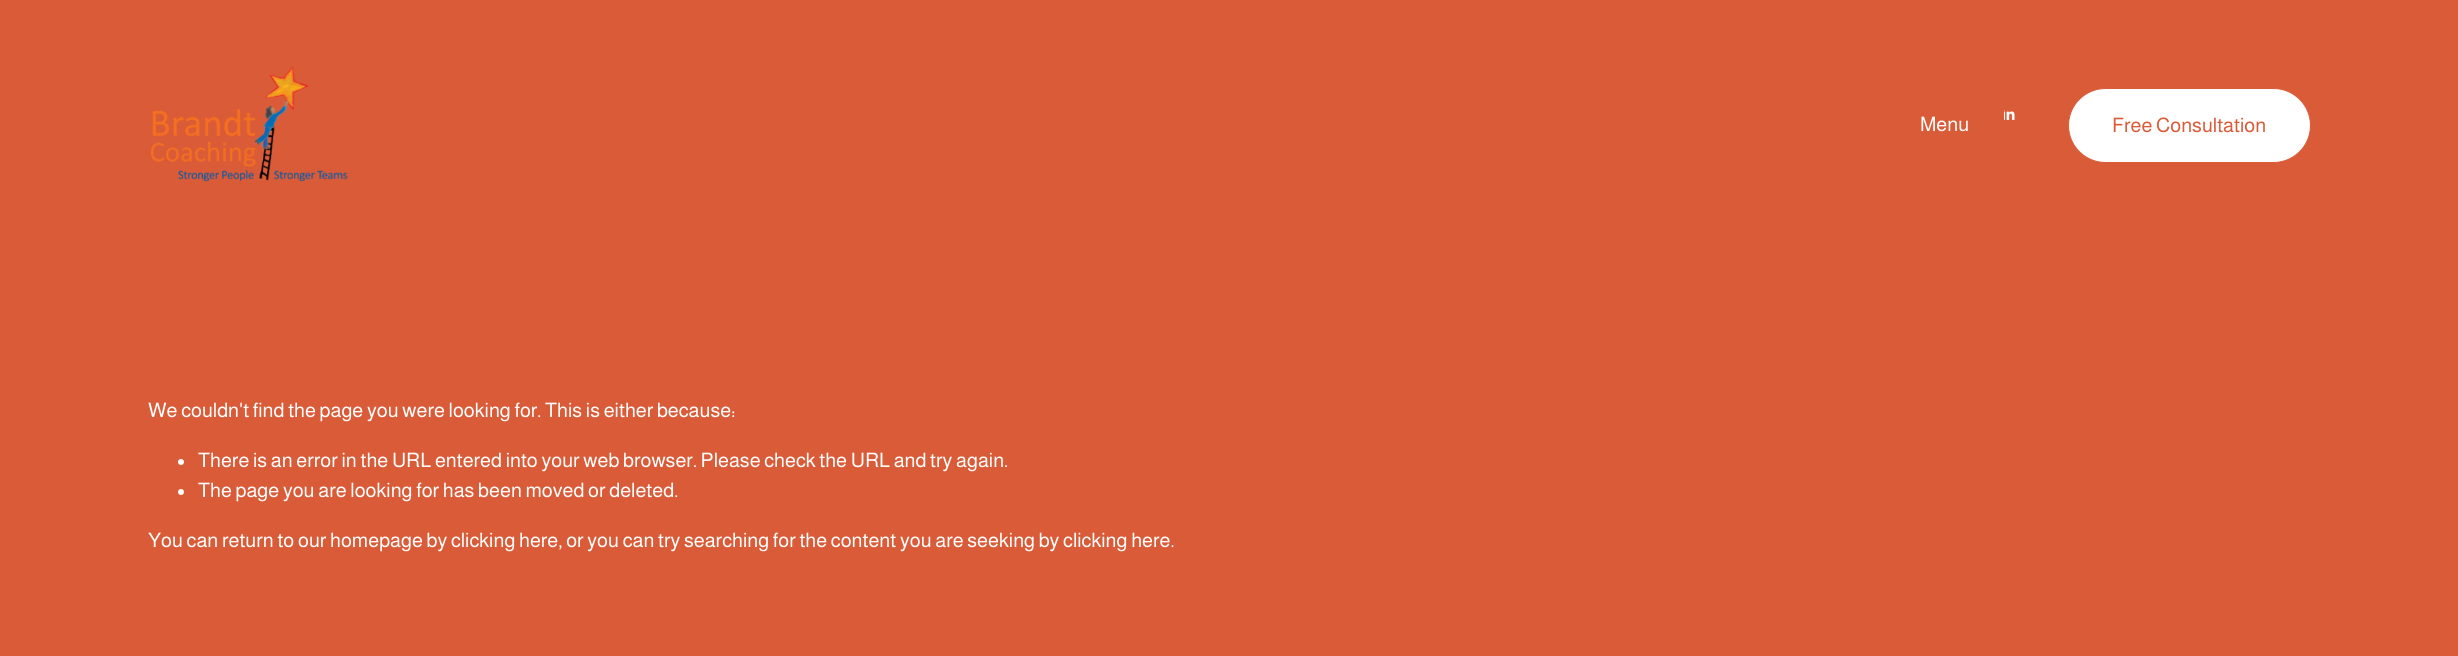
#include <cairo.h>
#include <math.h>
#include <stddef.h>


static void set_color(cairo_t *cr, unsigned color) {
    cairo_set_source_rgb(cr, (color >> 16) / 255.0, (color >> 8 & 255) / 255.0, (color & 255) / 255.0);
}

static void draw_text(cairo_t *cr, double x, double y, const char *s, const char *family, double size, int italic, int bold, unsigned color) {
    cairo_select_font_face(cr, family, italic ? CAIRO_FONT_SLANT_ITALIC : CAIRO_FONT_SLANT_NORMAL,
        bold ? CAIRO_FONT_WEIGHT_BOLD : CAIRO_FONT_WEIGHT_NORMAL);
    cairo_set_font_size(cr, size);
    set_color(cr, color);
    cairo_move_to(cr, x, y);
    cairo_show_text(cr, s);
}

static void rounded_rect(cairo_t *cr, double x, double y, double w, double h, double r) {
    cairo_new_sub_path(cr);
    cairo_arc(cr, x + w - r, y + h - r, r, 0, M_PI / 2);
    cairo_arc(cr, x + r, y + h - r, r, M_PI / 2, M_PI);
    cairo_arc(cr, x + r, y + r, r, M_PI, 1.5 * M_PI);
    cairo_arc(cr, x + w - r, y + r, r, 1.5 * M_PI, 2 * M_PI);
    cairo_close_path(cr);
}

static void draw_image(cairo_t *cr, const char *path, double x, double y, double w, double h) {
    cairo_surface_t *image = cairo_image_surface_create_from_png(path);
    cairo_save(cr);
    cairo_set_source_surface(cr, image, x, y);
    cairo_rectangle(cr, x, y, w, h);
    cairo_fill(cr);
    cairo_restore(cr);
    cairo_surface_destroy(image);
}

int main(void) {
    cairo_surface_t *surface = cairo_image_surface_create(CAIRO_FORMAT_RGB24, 2458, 656);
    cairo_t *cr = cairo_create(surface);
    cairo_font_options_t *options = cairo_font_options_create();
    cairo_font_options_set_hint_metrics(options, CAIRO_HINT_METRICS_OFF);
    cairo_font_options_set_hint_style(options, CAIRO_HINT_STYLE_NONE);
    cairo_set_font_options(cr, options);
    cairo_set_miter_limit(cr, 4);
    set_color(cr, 0xDA5B37);
    cairo_paint(cr);
    draw_image(cr, "assets/img1.png", 151, 66, 197, 116);
    draw_text(cr, 1920, 131, "Menu", "Almarai", 20, 0, 0, 0xFFFFFF);
    draw_image(cr, "assets/img2.png", 2004, 110, 11, 10);
    rounded_rect(cr, 2068.5, 88.5, 242, 74, 37);
    cairo_fill_preserve(cr);
    set_color(cr, 0xDA5B37);
    cairo_set_line_width(cr, 1);
    cairo_stroke(cr);
    draw_text(cr, 2112, 132, "Free Consultation", "Almarai", 20, 0, 0, 0xDA5B37);
    draw_text(cr, 148, 417, "We couldn't find the page you were looking for. This is either because:", "Almarai", 20, 0, 0, 0xFFFFFF);
    cairo_new_path(cr);
    cairo_arc(cr, 181, 462, 3, 0, 2 * M_PI);
    cairo_fill(cr);
    draw_text(cr, 198, 467, "There is an error in the URL entered into your web browser. Please check the URL and try again.", "Almarai", 20, 0, 0, 0xFFFFFF);
    cairo_new_path(cr);
    cairo_arc(cr, 181, 492, 3, 0, 2 * M_PI);
    cairo_fill(cr);
    draw_text(cr, 198, 497, "The page you are looking for has been moved or deleted.", "Almarai", 20, 0, 0, 0xFFFFFF);
    draw_text(cr, 148, 547, "You can return to our homepage by clicking here, or you can try searching for the content you are seeking by clicking here.", "Almarai", 20, 0, 0, 0xFFFFFF);
    cairo_surface_write_to_png(surface, "output.png");
    cairo_font_options_destroy(options);
    cairo_destroy(cr);
    cairo_surface_destroy(surface);
    return 0;
}
